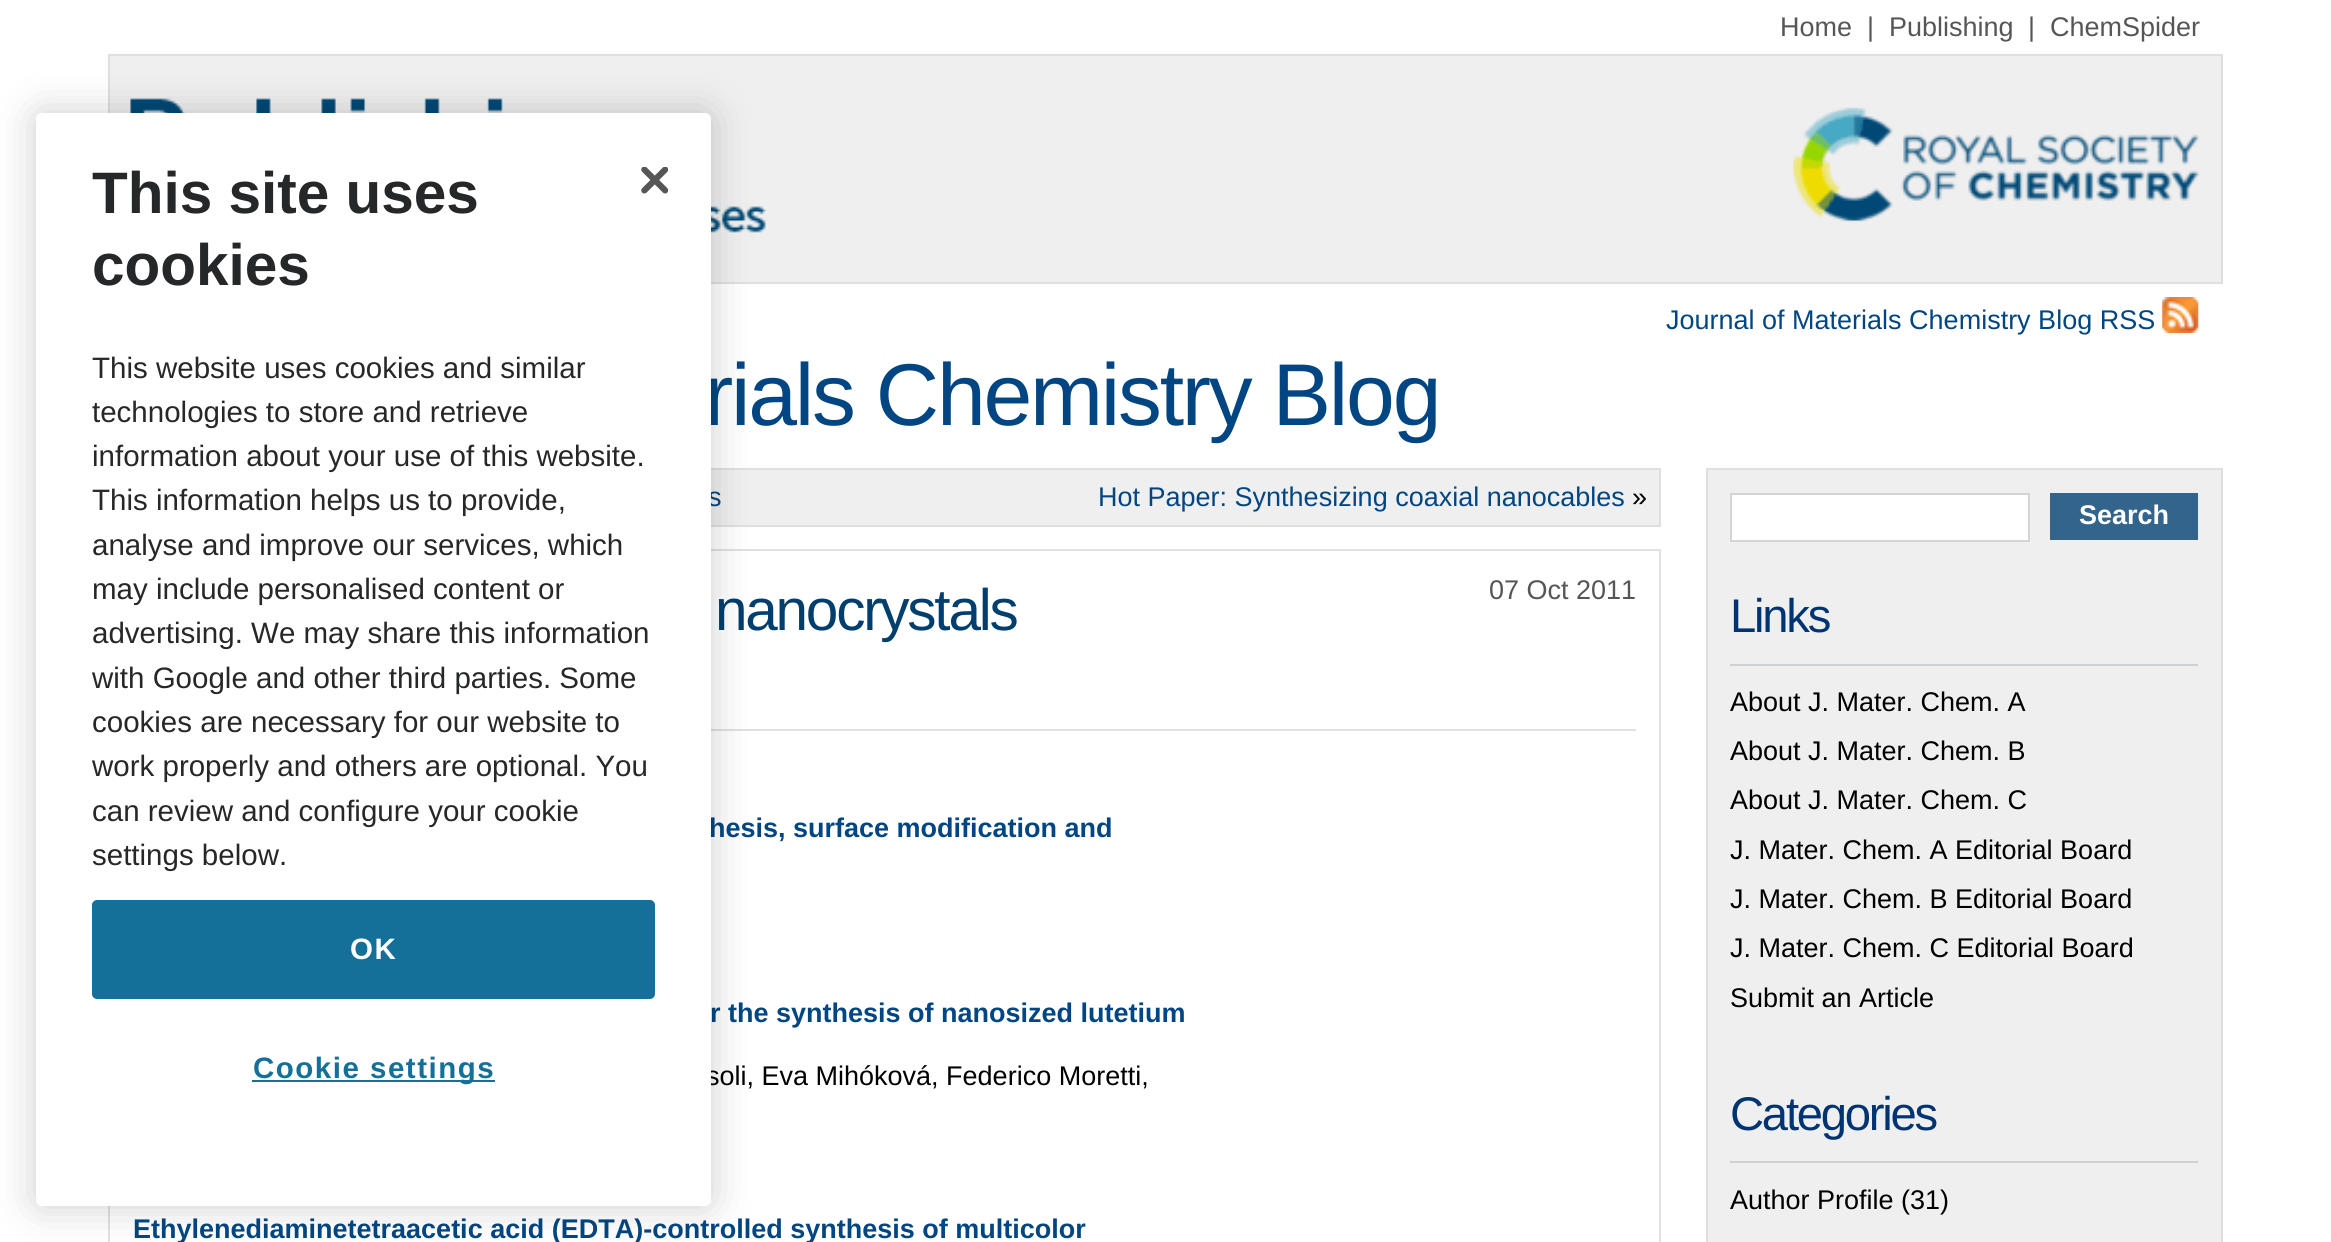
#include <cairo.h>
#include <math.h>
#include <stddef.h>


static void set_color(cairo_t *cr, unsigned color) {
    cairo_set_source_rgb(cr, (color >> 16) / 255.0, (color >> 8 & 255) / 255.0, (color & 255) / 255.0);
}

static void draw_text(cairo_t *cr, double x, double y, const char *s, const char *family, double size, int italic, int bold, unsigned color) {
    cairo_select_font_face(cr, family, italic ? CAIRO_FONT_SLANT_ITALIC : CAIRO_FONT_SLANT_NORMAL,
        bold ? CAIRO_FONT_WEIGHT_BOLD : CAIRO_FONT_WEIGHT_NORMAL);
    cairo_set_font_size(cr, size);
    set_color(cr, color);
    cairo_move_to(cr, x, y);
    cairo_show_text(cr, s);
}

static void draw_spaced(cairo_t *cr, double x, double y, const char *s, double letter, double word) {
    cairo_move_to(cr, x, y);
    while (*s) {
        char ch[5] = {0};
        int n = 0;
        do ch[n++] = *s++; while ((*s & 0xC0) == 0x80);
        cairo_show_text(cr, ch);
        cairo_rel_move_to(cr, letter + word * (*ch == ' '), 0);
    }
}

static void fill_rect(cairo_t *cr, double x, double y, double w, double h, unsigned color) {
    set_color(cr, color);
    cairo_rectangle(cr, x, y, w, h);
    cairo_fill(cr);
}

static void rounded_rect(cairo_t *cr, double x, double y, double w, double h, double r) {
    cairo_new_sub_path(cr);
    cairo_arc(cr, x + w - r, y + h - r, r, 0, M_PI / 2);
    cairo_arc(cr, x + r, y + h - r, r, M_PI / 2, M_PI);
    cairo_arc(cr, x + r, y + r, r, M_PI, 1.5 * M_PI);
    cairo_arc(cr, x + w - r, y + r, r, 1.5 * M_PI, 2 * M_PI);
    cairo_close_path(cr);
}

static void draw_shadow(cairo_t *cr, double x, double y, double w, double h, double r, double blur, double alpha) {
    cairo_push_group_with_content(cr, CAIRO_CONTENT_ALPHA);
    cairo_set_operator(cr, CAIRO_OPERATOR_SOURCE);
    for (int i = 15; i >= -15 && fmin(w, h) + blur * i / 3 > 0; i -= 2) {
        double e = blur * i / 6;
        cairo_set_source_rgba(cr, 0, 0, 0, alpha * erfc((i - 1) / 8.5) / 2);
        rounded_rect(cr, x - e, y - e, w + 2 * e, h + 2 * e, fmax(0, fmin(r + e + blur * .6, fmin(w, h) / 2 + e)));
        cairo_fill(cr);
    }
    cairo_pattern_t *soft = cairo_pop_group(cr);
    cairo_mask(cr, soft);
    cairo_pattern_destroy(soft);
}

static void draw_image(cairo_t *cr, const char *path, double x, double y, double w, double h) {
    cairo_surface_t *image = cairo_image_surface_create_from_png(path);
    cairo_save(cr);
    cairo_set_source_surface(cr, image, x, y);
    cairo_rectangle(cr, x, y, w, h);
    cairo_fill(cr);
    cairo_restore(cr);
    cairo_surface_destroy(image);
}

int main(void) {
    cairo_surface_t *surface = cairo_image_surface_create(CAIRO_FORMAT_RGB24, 2331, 1242);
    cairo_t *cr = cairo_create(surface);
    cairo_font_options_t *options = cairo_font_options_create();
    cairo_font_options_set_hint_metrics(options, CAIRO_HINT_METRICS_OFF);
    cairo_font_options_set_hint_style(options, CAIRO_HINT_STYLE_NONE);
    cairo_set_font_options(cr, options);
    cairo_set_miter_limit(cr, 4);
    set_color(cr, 0xFFFFFF);
    cairo_paint(cr);
    draw_text(cr, 1780, 36, "Home", "Liberation Sans", 27, 0, 0, 0x565656);
    draw_text(cr, 1867, 36, "|", "Liberation Sans", 27, 0, 0, 0x565656);
    draw_text(cr, 1889, 36, "Publishing", "Liberation Sans", 27, 0, 0, 0x565656);
    draw_text(cr, 2028, 36, "|", "Liberation Sans", 27, 0, 0, 0x565656);
    draw_text(cr, 2050, 36, "ChemSpider", "Liberation Sans", 27, 0, 0, 0x565656);
    set_color(cr, 0xEFEFEF);
    cairo_rectangle(cr, 109, 55, 2113, 228);
    cairo_fill_preserve(cr);
    set_color(cr, 0xDFDFDF);
    cairo_stroke(cr);
    draw_image(cr, "assets/img1.png", 130, 98, 636, 135);
    draw_image(cr, "assets/img2.png", 1793, 107, 406, 115);
    draw_text(cr, 1666, 329, "Journal of Materials Chemistry Blog RSS", "Liberation Sans", 27, 0, 0, 0x014682);
    draw_image(cr, "assets/img3.png", 2162, 297, 37, 36);
    cairo_set_font_size(cr, 87.75);
    draw_spaced(cr, 704, 425, "rials Chemistry Blog", -2.25, 0);
    fill_rect(cr, 711, 470, 948, 55, 0xEFEFEF);
    cairo_rectangle(cr, 109, 469, 1551, 57);
    set_color(cr, 0xDFDFDF);
    cairo_stroke(cr);
    draw_text(cr, 708, 506, "s", "Liberation Sans", 27, 0, 0, 0x014682);
    draw_text(cr, 1098, 506, "Hot Paper: Synthesizing coaxial nanocables", "Liberation Sans", 27, 0, 0, 0x014682);
    draw_text(cr, 1632, 506, "»", "Liberation Sans", 27, 0, 0, 0x000000);
    cairo_rectangle(cr, 109, 550, 1551, 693);
    set_color(cr, 0xE1E1E1);
    cairo_stroke(cr);
    cairo_set_font_size(cr, 58.5);
    set_color(cr, 0x003E6E);
    draw_spaced(cr, 715, 630, "nanocrystals", -2.25, 0);
    draw_text(cr, 1489, 599, "07 Oct 2011", "Liberation Sans", 27, 0, 0, 0x565656);
    fill_rect(cr, 711, 729, 925, 2, 0xE1E1E1);
    draw_text(cr, 709, 837, "hesis, surface modification and", "Liberation Sans", 27, 0, 1, 0x014682);
    draw_text(cr, 710, 1022, "r the synthesis of nanosized lutetium", "Liberation Sans", 27, 0, 1, 0x014682);
    draw_text(cr, 706, 1085, "soli, Eva Mihóková, Federico Moretti,", "Liberation Sans", 27, 0, 0, 0x000000);
    draw_text(cr, 133, 1238, "Ethylenediaminetetraacetic acid (EDTA)-controlled synthesis of multicolor", "Liberation Sans", 27, 0, 1, 0x014682);
    set_color(cr, 0xEFEFEF);
    cairo_rectangle(cr, 1707, 469, 515, 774);
    cairo_fill_preserve(cr);
    set_color(cr, 0xDFDFDF);
    cairo_stroke(cr);
    set_color(cr, 0xFFFFFF);
    cairo_rectangle(cr, 1731, 494, 298, 47);
    cairo_fill_preserve(cr);
    set_color(cr, 0xD4D4D4);
    cairo_stroke(cr);
    fill_rect(cr, 2050, 493, 148, 47, 0x33648B);
    draw_text(cr, 2079, 524, "Search", "Liberation Sans", 27, 0, 1, 0xFFFFFF);
    fill_rect(cr, 1730, 664, 468, 2, 0xCED2D5);
    cairo_select_font_face(cr, "Liberation Sans", CAIRO_FONT_SLANT_NORMAL, CAIRO_FONT_WEIGHT_NORMAL);
    cairo_set_font_size(cr, 47.25);
    set_color(cr, 0x003372);
    draw_spaced(cr, 1730, 632, "Links", -2.25, 0);
    draw_text(cr, 1730, 711, "About J. Mater. Chem. A", "Liberation Sans", 27, 0, 0, 0x000000);
    draw_text(cr, 1730, 760, "About J. Mater. Chem. B", "Liberation Sans", 27, 0, 0, 0x000000);
    draw_text(cr, 1730, 809, "About J. Mater. Chem. C", "Liberation Sans", 27, 0, 0, 0x000000);
    draw_text(cr, 1730, 859, "J. Mater. Chem. A Editorial Board", "Liberation Sans", 27, 0, 0, 0x000000);
    draw_text(cr, 1730, 908, "J. Mater. Chem. B Editorial Board", "Liberation Sans", 27, 0, 0, 0x000000);
    draw_text(cr, 1730, 957, "J. Mater. Chem. C Editorial Board", "Liberation Sans", 27, 0, 0, 0x000000);
    draw_text(cr, 1730, 1007, "Submit an Article", "Liberation Sans", 27, 0, 0, 0x000000);
    fill_rect(cr, 1730, 1161, 468, 2, 0xCED2D5);
    cairo_set_font_size(cr, 47.25);
    set_color(cr, 0x003372);
    draw_spaced(cr, 1730, 1130, "Categories", -2.25, 0);
    draw_text(cr, 1730, 1209, "Author Profile (31)", "Liberation Sans", 27, 0, 0, 0x000000);
    set_color(cr, 0x000000);
    draw_shadow(cr, 36, 113, 675, 1093, 6, 20, 0.2);
    set_color(cr, 0xFFFFFF);
    rounded_rect(cr, 36, 113, 675, 1093, 6);
    cairo_fill(cr);
    draw_text(cr, 92, 213, "This site uses", "Liberation Sans", 58.5, 0, 1, 0x252729);
    draw_text(cr, 92, 285, "cookies", "Liberation Sans", 58.5, 0, 1, 0x252729);
    draw_text(cr, 92, 378, "This website uses cookies and similar", "Liberation Sans", 29.5, 0, 0, 0x252729);
    draw_text(cr, 92, 422, "technologies to store and retrieve", "Liberation Sans", 29.5, 0, 0, 0x252729);
    draw_text(cr, 92, 466, "information about your use of this website.", "Liberation Sans", 29.5, 0, 0, 0x252729);
    draw_text(cr, 92, 510, "This information helps us to provide,", "Liberation Sans", 29.5, 0, 0, 0x252729);
    draw_text(cr, 92, 555, "analyse and improve our services, which", "Liberation Sans", 29.5, 0, 0, 0x252729);
    draw_text(cr, 92, 599, "may include personalised content or", "Liberation Sans", 29.5, 0, 0, 0x252729);
    draw_text(cr, 92, 643, "advertising. We may share this information", "Liberation Sans", 29.5, 0, 0, 0x252729);
    draw_text(cr, 92, 688, "with Google and other third parties. Some", "Liberation Sans", 29.5, 0, 0, 0x252729);
    draw_text(cr, 92, 732, "cookies are necessary for our website to", "Liberation Sans", 29.5, 0, 0, 0x252729);
    draw_text(cr, 92, 776, "work properly and others are optional. You", "Liberation Sans", 29.5, 0, 0, 0x252729);
    draw_text(cr, 92, 821, "can review and configure your cookie", "Liberation Sans", 29.5, 0, 0, 0x252729);
    draw_text(cr, 92, 865, "settings below.", "Liberation Sans", 29.5, 0, 0, 0x252729);
    draw_image(cr, "assets/img4.png", 641, 167, 27, 27);
    set_color(cr, 0x147098);
    rounded_rect(cr, 93, 901, 561, 97, 4);
    cairo_fill_preserve(cr);
    cairo_stroke(cr);
    cairo_select_font_face(cr, "Liberation Sans", CAIRO_FONT_SLANT_NORMAL, CAIRO_FONT_WEIGHT_BOLD);
    set_color(cr, 0xFFFFFF);
    draw_spaced(cr, 350, 959, "OK", 1.5, 0);
    fill_rect(cr, 252, 1080, 243, 2, 0x147098);
    draw_spaced(cr, 253, 1078, "Cookie settings", 1.5, 0);
    cairo_surface_write_to_png(surface, "output.png");
    cairo_font_options_destroy(options);
    cairo_destroy(cr);
    cairo_surface_destroy(surface);
    return 0;
}
